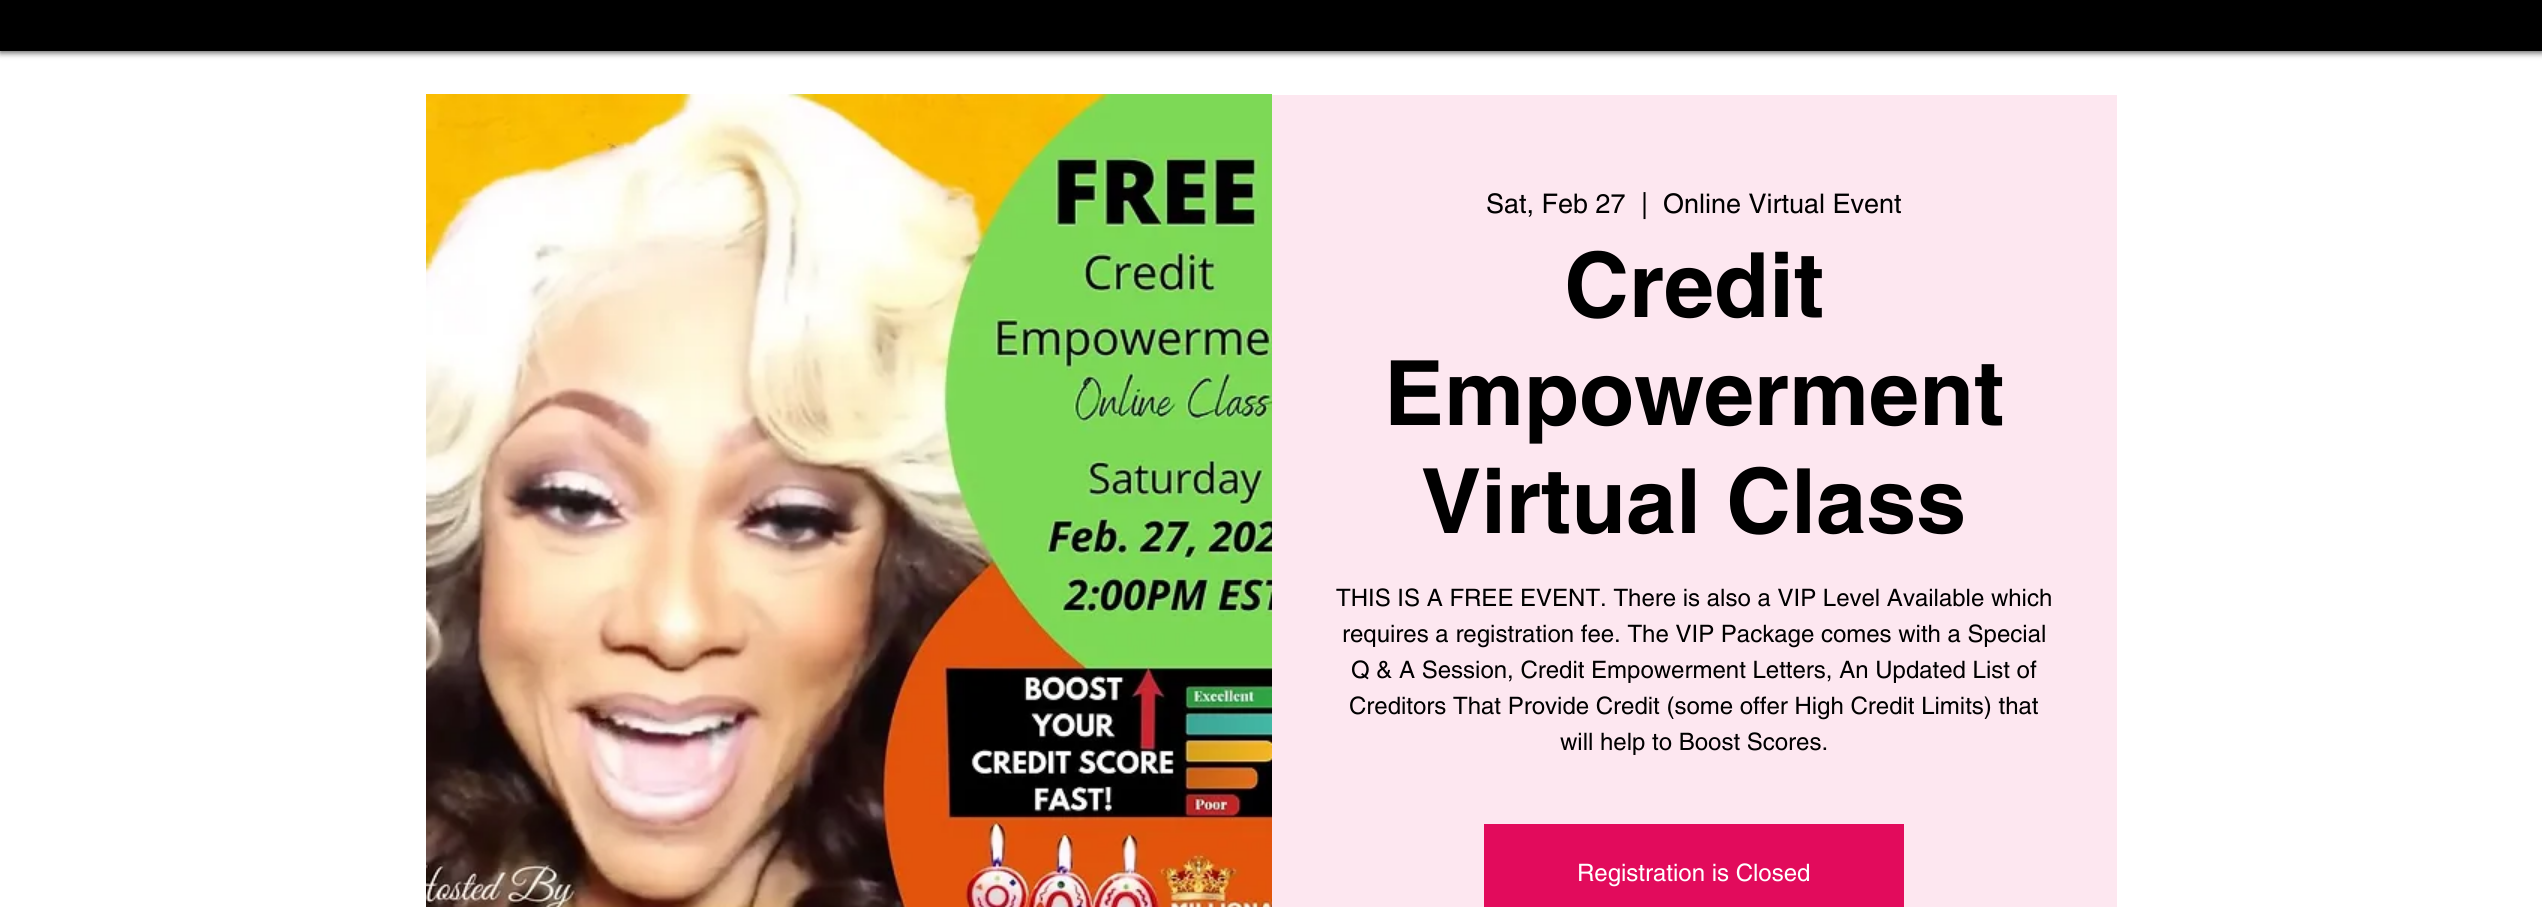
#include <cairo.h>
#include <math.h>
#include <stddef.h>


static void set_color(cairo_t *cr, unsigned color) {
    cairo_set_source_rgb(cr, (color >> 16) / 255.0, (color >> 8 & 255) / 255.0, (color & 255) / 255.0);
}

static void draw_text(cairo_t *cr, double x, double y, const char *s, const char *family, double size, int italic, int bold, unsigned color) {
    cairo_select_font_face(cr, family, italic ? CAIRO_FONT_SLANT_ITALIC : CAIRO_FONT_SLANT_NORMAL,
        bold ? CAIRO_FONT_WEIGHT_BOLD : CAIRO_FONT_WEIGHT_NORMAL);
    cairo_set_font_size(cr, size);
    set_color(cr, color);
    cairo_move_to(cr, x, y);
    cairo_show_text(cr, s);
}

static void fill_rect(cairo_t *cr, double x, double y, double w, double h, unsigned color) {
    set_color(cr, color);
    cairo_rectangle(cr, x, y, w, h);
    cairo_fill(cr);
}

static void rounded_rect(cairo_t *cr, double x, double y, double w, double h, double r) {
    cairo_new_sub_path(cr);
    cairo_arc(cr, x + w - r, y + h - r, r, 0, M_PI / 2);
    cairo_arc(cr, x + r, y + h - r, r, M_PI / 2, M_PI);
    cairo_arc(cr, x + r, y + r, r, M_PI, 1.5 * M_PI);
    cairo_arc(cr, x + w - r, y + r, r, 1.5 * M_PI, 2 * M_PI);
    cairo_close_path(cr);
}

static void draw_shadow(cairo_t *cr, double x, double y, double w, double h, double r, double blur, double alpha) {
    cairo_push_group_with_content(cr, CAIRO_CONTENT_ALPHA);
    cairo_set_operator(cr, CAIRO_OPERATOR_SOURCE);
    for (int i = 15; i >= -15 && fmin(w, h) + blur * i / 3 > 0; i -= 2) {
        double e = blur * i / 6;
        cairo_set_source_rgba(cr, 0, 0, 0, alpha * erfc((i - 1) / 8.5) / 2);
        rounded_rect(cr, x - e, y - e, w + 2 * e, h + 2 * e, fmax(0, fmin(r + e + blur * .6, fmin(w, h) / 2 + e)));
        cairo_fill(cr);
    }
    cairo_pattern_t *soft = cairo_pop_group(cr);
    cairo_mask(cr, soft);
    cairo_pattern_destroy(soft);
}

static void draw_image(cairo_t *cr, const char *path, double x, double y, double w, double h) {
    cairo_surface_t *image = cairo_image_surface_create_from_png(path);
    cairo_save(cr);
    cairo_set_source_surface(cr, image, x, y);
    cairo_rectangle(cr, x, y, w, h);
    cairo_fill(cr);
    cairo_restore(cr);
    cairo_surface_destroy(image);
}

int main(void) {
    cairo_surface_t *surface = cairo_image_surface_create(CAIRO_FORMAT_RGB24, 2542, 907);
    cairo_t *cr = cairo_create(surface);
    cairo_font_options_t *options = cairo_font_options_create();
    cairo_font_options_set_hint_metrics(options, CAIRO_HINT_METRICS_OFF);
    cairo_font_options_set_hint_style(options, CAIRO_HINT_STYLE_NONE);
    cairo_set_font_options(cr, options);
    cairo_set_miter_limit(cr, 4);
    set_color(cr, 0xFFFFFF);
    cairo_paint(cr);
    set_color(cr, 0x000000);
    draw_shadow(cr, 0, -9, 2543, 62, 0, 3, 0.6);
    fill_rect(cr, 0, 0, 2542, 51, 0x000000);
    draw_image(cr, "assets/img1.png", 426, 94, 846, 813);
    fill_rect(cr, 1272, 95, 845, 812, 0xFDE7F0);
    draw_text(cr, 1486, 213, "Sat, Feb 27", "helvetica", 27, 0, 0, 0x000000);
    draw_text(cr, 1641, 213, "|", "helvetica", 27, 0, 0, 0x000000);
    draw_text(cr, 1663, 213, "Online Virtual Event", "helvetica", 27, 0, 0, 0x000000);
    draw_text(cr, 1564, 317, "Credit", "helvetica", 90, 0, 1, 0x000000);
    draw_text(cr, 1384, 425, "Empowerment", "helvetica", 90, 0, 1, 0x000000);
    draw_text(cr, 1421, 533, "Virtual Class", "helvetica", 90, 0, 1, 0x000000);
    draw_text(cr, 1336, 606, "THIS IS A FREE EVENT. There is also a VIP Level Available which", "helvetica", 24, 0, 0, 0x000000);
    draw_text(cr, 1342, 642, "requires a registration fee. The VIP Package comes with a Special", "helvetica", 24, 0, 0, 0x000000);
    draw_text(cr, 1351, 678, "Q & A Session, Credit Empowerment Letters, An Updated List of", "helvetica", 24, 0, 0, 0x000000);
    draw_text(cr, 1349, 714, "Creditors That Provide Credit (some offer High Credit Limits) that", "helvetica", 24, 0, 0, 0x000000);
    draw_text(cr, 1560, 750, "will help to Boost Scores.", "helvetica", 24, 0, 0, 0x000000);
    fill_rect(cr, 1484, 824, 420, 83, 0xE20B5C);
    draw_text(cr, 1577, 881, "Registration is Closed", "helvetica", 24, 0, 0, 0xFFFFFF);
    cairo_surface_write_to_png(surface, "output.png");
    cairo_font_options_destroy(options);
    cairo_destroy(cr);
    cairo_surface_destroy(surface);
    return 0;
}
